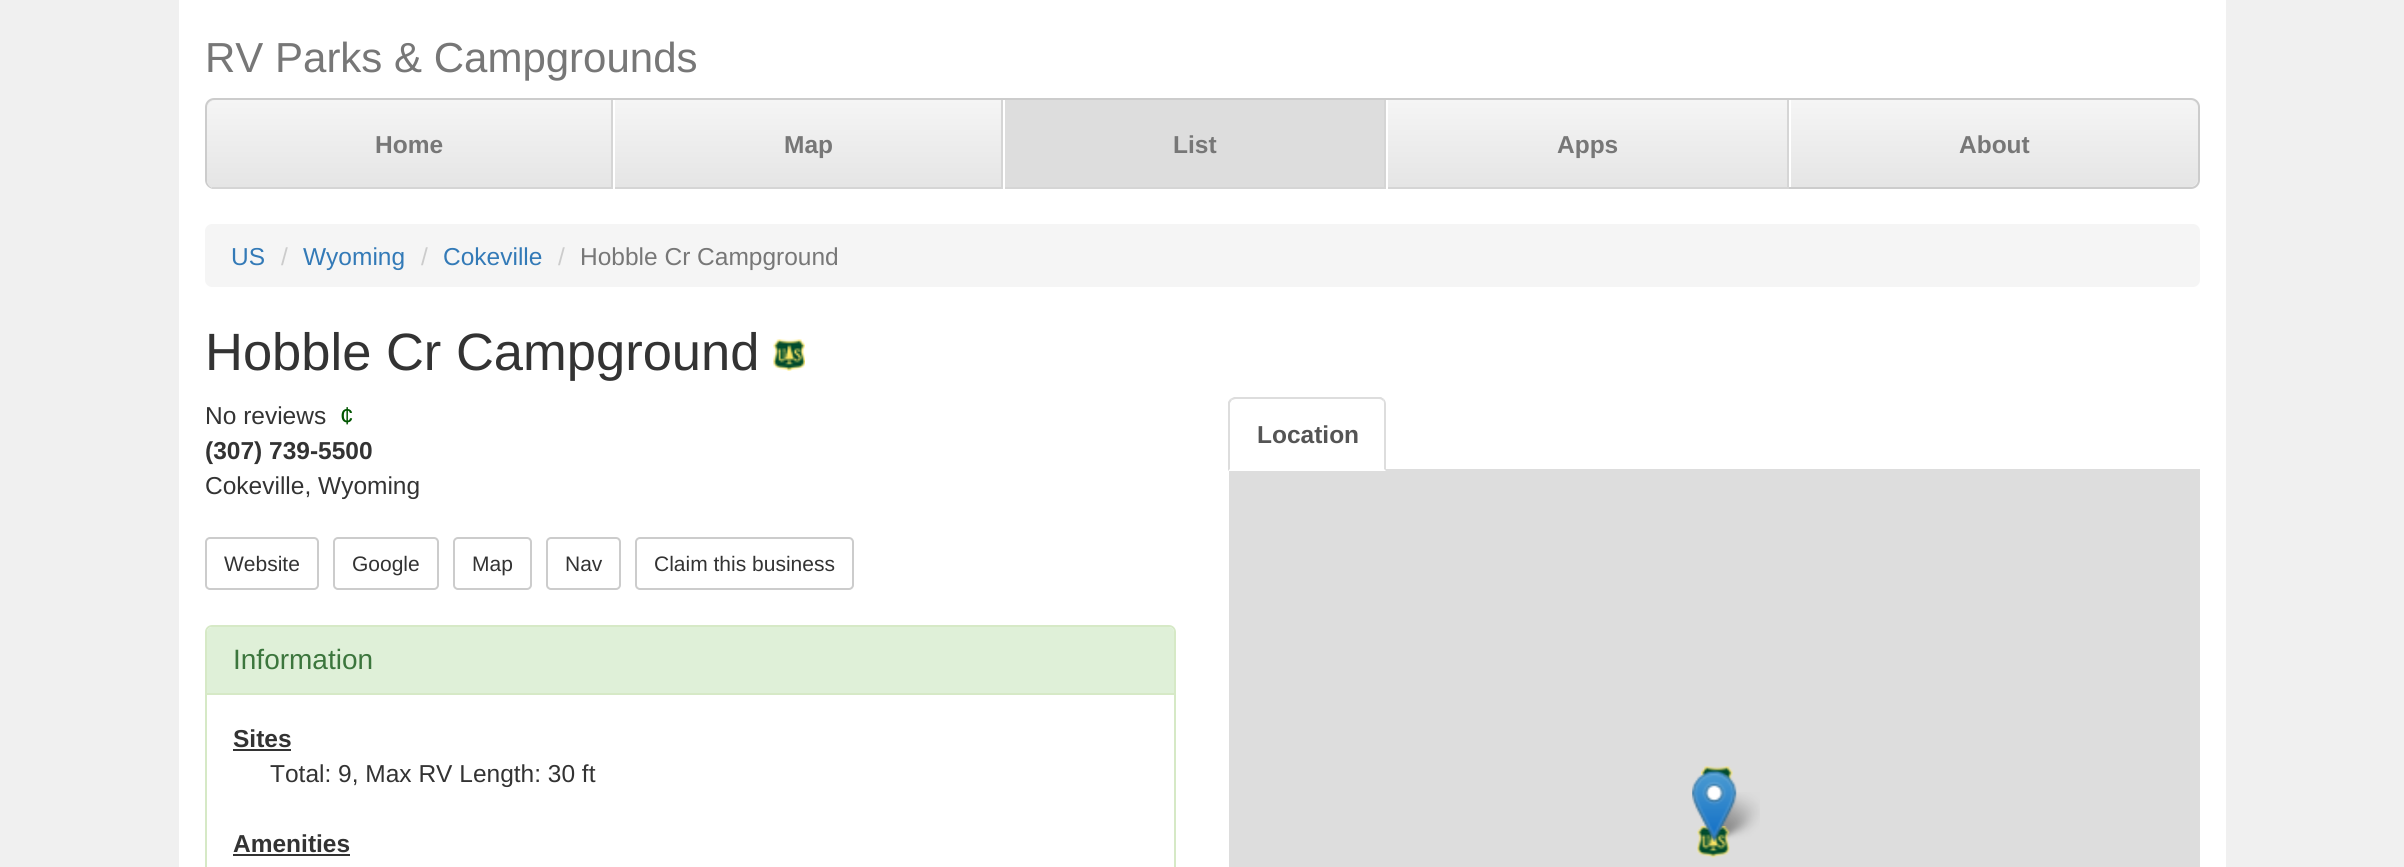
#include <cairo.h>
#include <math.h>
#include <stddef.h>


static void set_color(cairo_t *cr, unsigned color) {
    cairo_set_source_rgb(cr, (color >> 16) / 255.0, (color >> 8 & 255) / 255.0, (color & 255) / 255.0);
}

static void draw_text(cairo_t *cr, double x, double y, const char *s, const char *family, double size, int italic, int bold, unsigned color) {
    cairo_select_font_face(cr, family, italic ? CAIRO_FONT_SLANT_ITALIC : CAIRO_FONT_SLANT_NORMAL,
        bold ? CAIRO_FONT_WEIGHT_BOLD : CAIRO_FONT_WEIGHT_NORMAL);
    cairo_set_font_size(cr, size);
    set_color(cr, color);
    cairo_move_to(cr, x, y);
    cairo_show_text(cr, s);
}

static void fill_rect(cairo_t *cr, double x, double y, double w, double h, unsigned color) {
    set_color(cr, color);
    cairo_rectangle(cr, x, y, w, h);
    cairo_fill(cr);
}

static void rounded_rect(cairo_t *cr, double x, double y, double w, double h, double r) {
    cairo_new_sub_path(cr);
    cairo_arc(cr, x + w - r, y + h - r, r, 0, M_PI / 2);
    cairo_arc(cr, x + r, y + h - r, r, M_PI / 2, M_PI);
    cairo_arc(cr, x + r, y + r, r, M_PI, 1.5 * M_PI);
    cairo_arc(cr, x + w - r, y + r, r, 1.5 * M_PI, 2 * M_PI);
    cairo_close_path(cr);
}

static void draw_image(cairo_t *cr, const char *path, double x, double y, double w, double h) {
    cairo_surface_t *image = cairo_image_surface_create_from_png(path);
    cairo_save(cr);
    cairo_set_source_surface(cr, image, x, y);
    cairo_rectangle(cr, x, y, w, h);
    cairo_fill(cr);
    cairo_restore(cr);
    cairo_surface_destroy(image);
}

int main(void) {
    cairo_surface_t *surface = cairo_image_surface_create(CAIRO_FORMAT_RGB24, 2404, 867);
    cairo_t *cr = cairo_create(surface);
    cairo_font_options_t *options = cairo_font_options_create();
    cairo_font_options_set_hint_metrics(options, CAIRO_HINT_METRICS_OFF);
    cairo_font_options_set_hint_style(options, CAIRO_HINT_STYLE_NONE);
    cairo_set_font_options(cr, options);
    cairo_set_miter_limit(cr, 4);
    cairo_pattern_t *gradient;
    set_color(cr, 0xF0F0F0);
    cairo_paint(cr);
    fill_rect(cr, 179, 0, 2047, 867, 0xFFFFFF);
    draw_text(cr, 205, 72, "RV Parks & Campgrounds", "Liberation Sans", 42, 0, 0, 0x777777);
    set_color(cr, 0xEEEEEE);
    rounded_rect(cr, 206, 99, 1993, 89, 8);
    cairo_fill_preserve(cr);
    set_color(cr, 0xCCCCCC);
    cairo_stroke(cr);
    set_color(cr, 0xE5E5E5);
    cairo_new_path(cr);
    cairo_move_to(cr, 216, 100);
    cairo_line_to(cr, 613, 100);
    cairo_line_to(cr, 613, 189);
    cairo_line_to(cr, 216, 189);
    cairo_curve_to(cr, 211, 189, 207, 185, 207, 180);
    cairo_line_to(cr, 207, 109);
    cairo_curve_to(cr, 207, 104, 211, 100, 216, 100);
    cairo_close_path(cr);
    cairo_fill(cr);
    cairo_save(cr);
    cairo_new_path(cr);
    cairo_move_to(cr, 216, 100);
    cairo_line_to(cr, 613, 100);
    cairo_line_to(cr, 613, 189);
    cairo_line_to(cr, 216, 189);
    cairo_curve_to(cr, 211, 189, 207, 185, 207, 180);
    cairo_line_to(cr, 207, 109);
    cairo_curve_to(cr, 207, 104, 211, 100, 216, 100);
    cairo_close_path(cr);
    cairo_clip(cr);
    gradient = cairo_pattern_create_linear(409, 100, 409, 187);
    cairo_pattern_add_color_stop_rgba(gradient, 0, 0.961, 0.961, 0.961, 1);
    cairo_pattern_add_color_stop_rgba(gradient, 1, 0.898, 0.898, 0.898, 1);
    cairo_set_source(cr, gradient);
    cairo_pattern_destroy(gradient);
    cairo_new_path(cr);
    cairo_move_to(cr, 216, 100);
    cairo_line_to(cr, 613, 100);
    cairo_line_to(cr, 613, 187);
    cairo_line_to(cr, 207, 187);
    cairo_line_to(cr, 207, 109);
    cairo_curve_to(cr, 207, 104, 211, 100, 216, 100);
    cairo_close_path(cr);
    cairo_fill(cr);
    cairo_restore(cr);
    fill_rect(cr, 611, 100, 2, 89, 0xD5D5D5);
    fill_rect(cr, 212, 187, 401, 2, 0xD5D5D5);
    draw_text(cr, 375, 153, "Home", "Liberation Sans", 24.5, 0, 1, 0x777777);
    gradient = cairo_pattern_create_linear(808, 100, 808, 187);
    cairo_pattern_add_color_stop_rgba(gradient, 0, 0.961, 0.961, 0.961, 1);
    cairo_pattern_add_color_stop_rgba(gradient, 1, 0.898, 0.898, 0.898, 1);
    cairo_set_source(cr, gradient);
    cairo_pattern_destroy(gradient);
    cairo_rectangle(cr, 615, 100, 386, 87);
    cairo_fill(cr);
    fill_rect(cr, 1001, 100, 2, 89, 0xD5D5D5);
    fill_rect(cr, 613, 187, 390, 2, 0xD5D5D5);
    fill_rect(cr, 613, 100, 2, 89, 0xFFFFFF);
    draw_text(cr, 784, 153, "Map", "Liberation Sans", 24.5, 0, 1, 0x777777);
    fill_rect(cr, 1005, 100, 379, 87, 0xDDDDDD);
    fill_rect(cr, 1384, 100, 2, 89, 0xD5D5D5);
    fill_rect(cr, 1003, 187, 383, 2, 0xD5D5D5);
    fill_rect(cr, 1003, 100, 2, 89, 0xFFFFFF);
    draw_text(cr, 1173, 153, "List", "Liberation Sans", 24.5, 0, 1, 0x777777);
    gradient = cairo_pattern_create_linear(1587, 100, 1587, 187);
    cairo_pattern_add_color_stop_rgba(gradient, 0, 0.961, 0.961, 0.961, 1);
    cairo_pattern_add_color_stop_rgba(gradient, 1, 0.898, 0.898, 0.898, 1);
    cairo_set_source(cr, gradient);
    cairo_pattern_destroy(gradient);
    cairo_rectangle(cr, 1388, 100, 399, 87);
    cairo_fill(cr);
    fill_rect(cr, 1787, 100, 2, 89, 0xD5D5D5);
    fill_rect(cr, 1386, 187, 403, 2, 0xD5D5D5);
    fill_rect(cr, 1386, 100, 2, 89, 0xFFFFFF);
    draw_text(cr, 1557, 153, "Apps", "Liberation Sans", 24.5, 0, 1, 0x777777);
    gradient = cairo_pattern_create_linear(1994, 100, 1994, 187);
    cairo_pattern_add_color_stop_rgba(gradient, 0, 0.961, 0.961, 0.961, 1);
    cairo_pattern_add_color_stop_rgba(gradient, 1, 0.898, 0.898, 0.898, 1);
    cairo_set_source(cr, gradient);
    cairo_pattern_destroy(gradient);
    cairo_new_path(cr);
    cairo_move_to(cr, 1789, 100);
    cairo_line_to(cr, 2189, 100);
    cairo_curve_to(cr, 2194, 100, 2198, 104, 2198, 109);
    cairo_line_to(cr, 2198, 178);
    cairo_curve_to(cr, 2198, 183, 2194, 187, 2189, 187);
    cairo_line_to(cr, 1789, 187);
    cairo_close_path(cr);
    cairo_fill(cr);
    fill_rect(cr, 1789, 100, 2, 87, 0xFFFFFF);
    draw_text(cr, 1959, 153, "About", "Liberation Sans", 24.5, 0, 1, 0x777777);
    set_color(cr, 0xF5F5F5);
    rounded_rect(cr, 205, 224, 1995, 63, 7);
    cairo_fill(cr);
    draw_text(cr, 231, 265, "US", "Liberation Sans", 24.5, 0, 0, 0x337AB7);
    draw_text(cr, 281, 265, "/", "Liberation Sans", 24.5, 0, 0, 0xCCCCCC);
    draw_text(cr, 303, 265, "Wyoming", "Liberation Sans", 24.5, 0, 0, 0x337AB7);
    draw_text(cr, 421, 265, "/", "Liberation Sans", 24.5, 0, 0, 0xCCCCCC);
    draw_text(cr, 443, 265, "Cokeville", "Liberation Sans", 24.5, 0, 0, 0x337AB7);
    draw_text(cr, 558, 265, "/", "Liberation Sans", 24.5, 0, 0, 0xCCCCCC);
    draw_text(cr, 580, 265, "Hobble Cr Campground", "Liberation Sans", 24.5, 0, 0, 0x777777);
    draw_text(cr, 205, 370, "Hobble Cr Campground", "Liberation Sans", 52.5, 0, 0, 0x333333);
    draw_image(cr, "assets/img1.png", 773, 339, 32, 32);
    draw_text(cr, 205, 424, "No reviews", "Liberation Sans", 24.5, 0, 0, 0x333333);
    draw_text(cr, 340, 424, "¢", "Liberation Sans", 24.5, 0, 0, 0x005500);
    draw_text(cr, 205, 459, "(307) 739-5500", "Liberation Sans", 24.5, 0, 1, 0x333333);
    draw_text(cr, 205, 494, "Cokeville, Wyoming", "Liberation Sans", 24.5, 0, 0, 0x333333);
    rounded_rect(cr, 206, 538, 112, 51, 4);
    set_color(cr, 0xCCCCCC);
    cairo_stroke(cr);
    draw_text(cr, 224, 571, "Website", "Liberation Sans", 21, 0, 0, 0x333333);
    rounded_rect(cr, 334, 538, 104, 51, 4);
    set_color(cr, 0xCCCCCC);
    cairo_stroke(cr);
    draw_text(cr, 352, 571, "Google", "Liberation Sans", 21, 0, 0, 0x333333);
    rounded_rect(cr, 454, 538, 77, 51, 4);
    set_color(cr, 0xCCCCCC);
    cairo_stroke(cr);
    draw_text(cr, 472, 571, "Map", "Liberation Sans", 21, 0, 0, 0x333333);
    rounded_rect(cr, 547, 538, 73, 51, 4);
    set_color(cr, 0xCCCCCC);
    cairo_stroke(cr);
    draw_text(cr, 565, 571, "Nav", "Liberation Sans", 21, 0, 0, 0x333333);
    rounded_rect(cr, 636, 538, 217, 51, 4);
    set_color(cr, 0xCCCCCC);
    cairo_stroke(cr);
    draw_text(cr, 654, 571, "Claim this business", "Liberation Sans", 21, 0, 0, 0x333333);
    rounded_rect(cr, 206, 626, 969, 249, 6);
    set_color(cr, 0xD6E9C6);
    cairo_stroke(cr);
    set_color(cr, 0xDFF0D8);
    cairo_new_path(cr);
    cairo_move_to(cr, 212, 627);
    cairo_line_to(cr, 1169, 627);
    cairo_curve_to(cr, 1172, 627, 1174, 629, 1174, 632);
    cairo_line_to(cr, 1174, 695);
    cairo_line_to(cr, 207, 695);
    cairo_line_to(cr, 207, 632);
    cairo_curve_to(cr, 207, 629, 209, 627, 212, 627);
    cairo_close_path(cr);
    cairo_fill(cr);
    fill_rect(cr, 207, 693, 967, 2, 0xD6E9C6);
    draw_text(cr, 233, 669, "Information", "Liberation Sans", 28, 0, 0, 0x3C763D);
    draw_text(cr, 233, 747, "Sites", "Liberation Sans", 24.5, 0, 1, 0x333333);
    fill_rect(cr, 233, 749, 58, 2, 0x333333);
    draw_text(cr, 270, 782, "Total: 9, Max RV Length: 30 ft", "Liberation Sans", 24.5, 0, 0, 0x333333);
    draw_text(cr, 233, 852, "Amenities", "Liberation Sans", 24.5, 0, 1, 0x333333);
    fill_rect(cr, 233, 854, 117, 2, 0x333333);
    fill_rect(cr, 1386, 469, 814, 2, 0xDDDDDD);
    cairo_new_path(cr);
    cairo_move_to(cr, 1236, 399);
    cairo_curve_to(cr, 1234, 399, 1233, 400, 1232, 400);
    cairo_line_to(cr, 1230, 399);
    cairo_line_to(cr, 1234, 397);
    cairo_line_to(cr, 1381, 397);
    cairo_line_to(cr, 1384, 399);
    cairo_line_to(cr, 1383, 401);
    cairo_curve_to(cr, 1382, 400, 1381, 399, 1379, 399);
    cairo_close_path(cr);
    cairo_fill(cr);
    cairo_new_path(cr);
    cairo_move_to(cr, 1386, 471);
    cairo_line_to(cr, 1386, 404);
    cairo_curve_to(cr, 1386, 402, 1385, 400, 1384, 399);
    cairo_line_to(cr, 1383, 401);
    cairo_curve_to(cr, 1384, 401, 1384, 403, 1384, 404);
    cairo_line_to(cr, 1384, 469);
    cairo_close_path(cr);
    cairo_fill(cr);
    cairo_new_path(cr);
    cairo_move_to(cr, 1228, 471);
    cairo_line_to(cr, 1228, 402);
    cairo_line_to(cr, 1230, 399);
    cairo_line_to(cr, 1232, 400);
    cairo_line_to(cr, 1230, 403);
    cairo_line_to(cr, 1230, 469);
    cairo_close_path(cr);
    cairo_fill(cr);
    draw_text(cr, 1257, 443, "Location", "Liberation Sans", 24.5, 0, 1, 0x555555);
    fill_rect(cr, 1229, 471, 971, 396, 0xDDDDDD);
    draw_image(cr, "assets/img2.png", 1701, 766, 32, 24);
    draw_image(cr, "assets/img5.png", 1708, 792, 52, 48);
    draw_image(cr, "assets/img4.png", 1697, 826, 33, 32);
    draw_image(cr, "assets/img3.png", 1692, 770, 45, 72);
    cairo_surface_write_to_png(surface, "output.png");
    cairo_font_options_destroy(options);
    cairo_destroy(cr);
    cairo_surface_destroy(surface);
    return 0;
}
